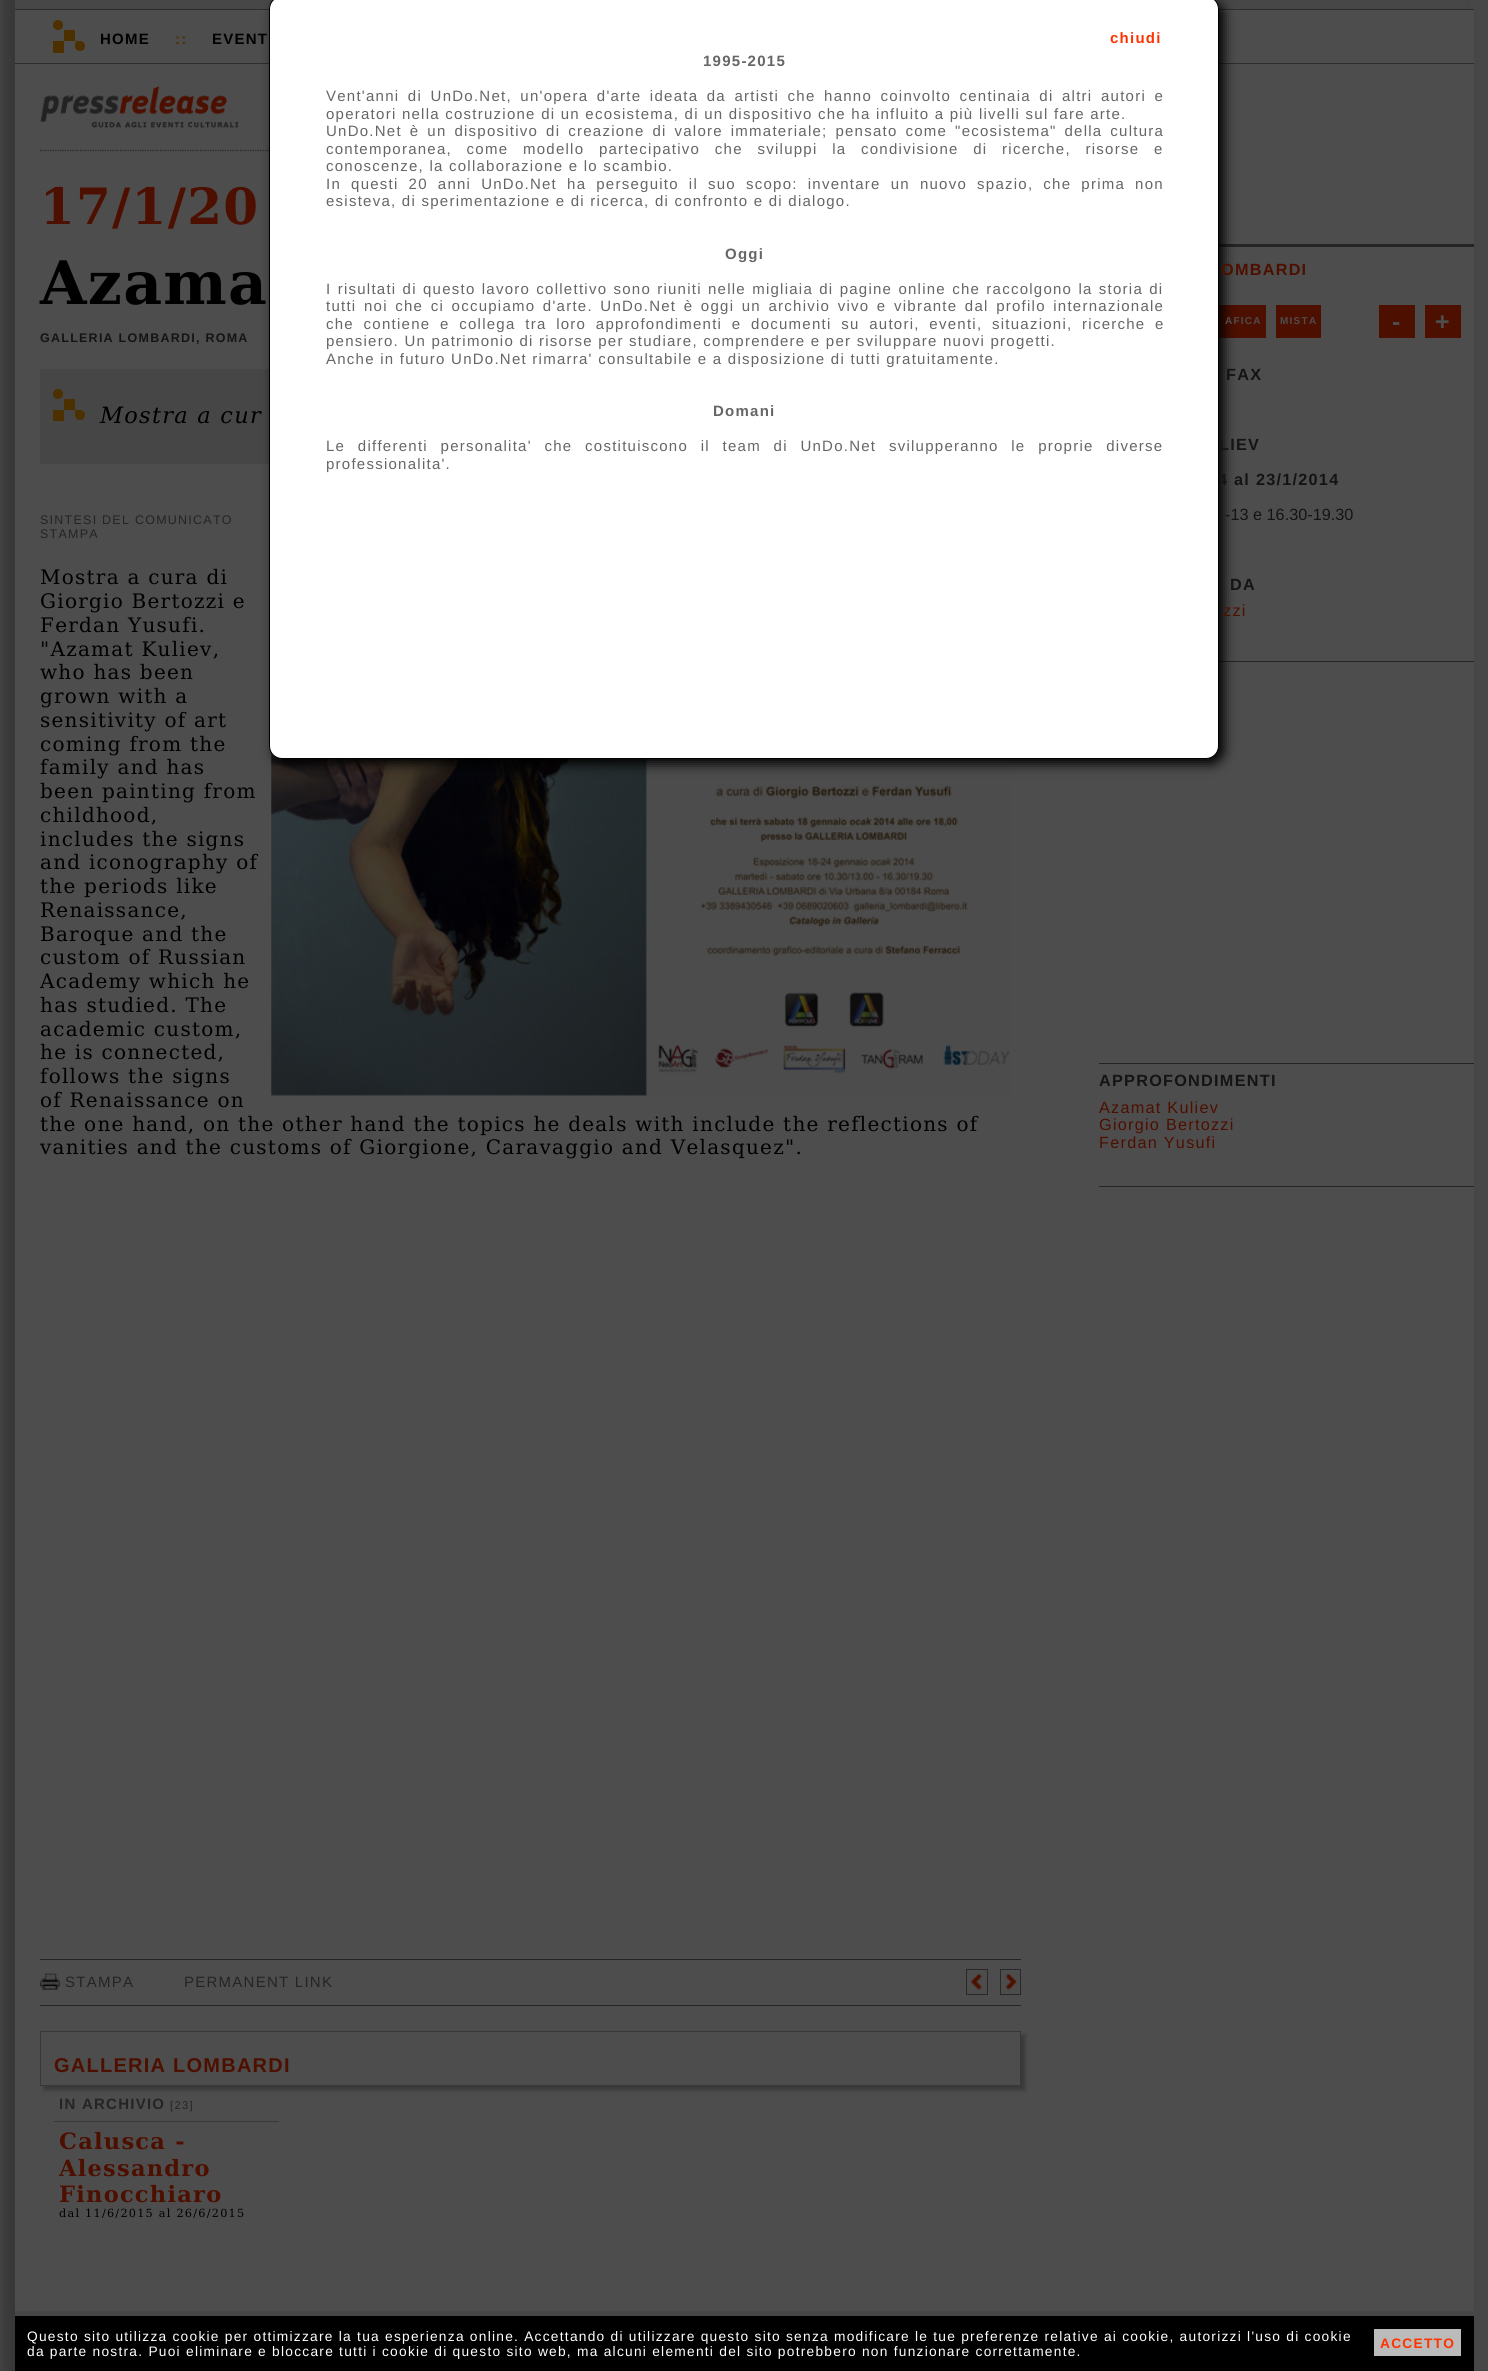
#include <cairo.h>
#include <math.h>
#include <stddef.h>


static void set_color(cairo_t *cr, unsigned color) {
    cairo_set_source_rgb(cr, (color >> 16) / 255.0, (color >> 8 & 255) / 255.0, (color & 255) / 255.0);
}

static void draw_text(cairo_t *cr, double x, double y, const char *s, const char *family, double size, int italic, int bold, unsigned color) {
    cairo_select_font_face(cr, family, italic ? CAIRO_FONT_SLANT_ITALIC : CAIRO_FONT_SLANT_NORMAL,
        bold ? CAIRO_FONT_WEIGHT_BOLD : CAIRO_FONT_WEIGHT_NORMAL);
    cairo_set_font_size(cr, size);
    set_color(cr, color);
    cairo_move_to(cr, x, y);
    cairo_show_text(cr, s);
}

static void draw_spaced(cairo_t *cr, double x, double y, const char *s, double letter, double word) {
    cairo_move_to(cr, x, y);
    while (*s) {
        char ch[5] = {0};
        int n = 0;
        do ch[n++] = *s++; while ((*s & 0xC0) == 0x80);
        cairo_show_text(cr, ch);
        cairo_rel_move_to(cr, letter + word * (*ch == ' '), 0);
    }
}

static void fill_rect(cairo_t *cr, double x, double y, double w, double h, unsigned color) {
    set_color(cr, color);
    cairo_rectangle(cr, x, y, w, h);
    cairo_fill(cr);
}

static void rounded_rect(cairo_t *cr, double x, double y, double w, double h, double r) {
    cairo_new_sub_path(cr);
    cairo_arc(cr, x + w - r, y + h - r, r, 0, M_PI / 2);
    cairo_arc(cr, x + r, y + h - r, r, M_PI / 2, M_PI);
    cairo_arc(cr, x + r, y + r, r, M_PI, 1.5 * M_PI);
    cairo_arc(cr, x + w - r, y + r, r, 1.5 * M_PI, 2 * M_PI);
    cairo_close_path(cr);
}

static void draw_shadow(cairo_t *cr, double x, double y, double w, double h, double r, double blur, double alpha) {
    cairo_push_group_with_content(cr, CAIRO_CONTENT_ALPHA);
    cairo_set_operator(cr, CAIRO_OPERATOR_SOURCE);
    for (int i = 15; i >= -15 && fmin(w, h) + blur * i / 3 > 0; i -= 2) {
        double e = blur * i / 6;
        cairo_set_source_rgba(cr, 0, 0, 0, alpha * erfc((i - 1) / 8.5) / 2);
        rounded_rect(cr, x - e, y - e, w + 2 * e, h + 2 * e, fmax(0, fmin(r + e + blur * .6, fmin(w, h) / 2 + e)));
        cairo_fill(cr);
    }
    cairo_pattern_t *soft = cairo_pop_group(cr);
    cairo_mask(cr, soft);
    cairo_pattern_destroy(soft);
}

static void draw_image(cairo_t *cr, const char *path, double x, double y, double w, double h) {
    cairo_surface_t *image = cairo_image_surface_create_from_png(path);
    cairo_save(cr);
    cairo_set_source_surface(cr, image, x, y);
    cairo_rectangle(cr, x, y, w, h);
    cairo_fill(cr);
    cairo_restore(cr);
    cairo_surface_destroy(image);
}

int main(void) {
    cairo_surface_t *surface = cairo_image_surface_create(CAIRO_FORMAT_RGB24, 1488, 2371);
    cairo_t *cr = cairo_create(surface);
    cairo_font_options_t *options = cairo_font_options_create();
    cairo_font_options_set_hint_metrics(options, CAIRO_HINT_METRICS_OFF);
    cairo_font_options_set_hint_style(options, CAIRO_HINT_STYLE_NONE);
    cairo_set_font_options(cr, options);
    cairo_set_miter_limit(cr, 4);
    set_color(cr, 0x474747);
    cairo_paint(cr);
    set_color(cr, 0x383838);
    draw_shadow(cr, 3, -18, 1458, 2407, 0, 6, 1);
    fill_rect(cr, 15, 10, 1459, 2301, 0x4D4D4D);
    fill_rect(cr, 15, 0, 1452, 9, 0x474747);
    fill_rect(cr, 15, 9, 1459, 1, 0x2D2D2D);
    fill_rect(cr, 15, 63, 1459, 1, 0x2D2D2D);
    set_color(cr, 0x4D3000);
    cairo_arc(cr, 58, 25, 5, 0, 2 * M_PI);
    cairo_fill(cr);
    fill_rect(cr, 64, 30, 11, 11, 0x4D3000);
    fill_rect(cr, 53, 41, 11, 12, 0x4D3000);
    cairo_arc(cr, 80, 46, 5, 0, 2 * M_PI);
    cairo_fill(cr);
    fill_rect(cr, 75, 41, 4, 1, 0x4D3000);
    fill_rect(cr, 75, 43, 3, 3, 0x4D3000);
    cairo_select_font_face(cr, "Liberation Sans", CAIRO_FONT_SLANT_NORMAL, CAIRO_FONT_WEIGHT_BOLD);
    cairo_set_font_size(cr, 15);
    set_color(cr, 0x000000);
    draw_spaced(cr, 100, 44, "HOME", 1.25, 0);
    set_color(cr, 0x4D3000);
    draw_spaced(cr, 175, 44, "::", 1.25, 0);
    set_color(cr, 0x000000);
    draw_spaced(cr, 212, 44, "EVENT", 1.25, 0);
    cairo_new_path(cr);
    cairo_move_to(cr, 40, 150.5);
    cairo_line_to(cr, 1021, 150.5);
    set_color(cr, 0x242424);
    cairo_set_line_width(cr, 1.2);
    cairo_set_dash(cr, (double[]){1.25, 1.25}, 2, 0);
    cairo_stroke(cr);
    fill_rect(cr, 40, 369, 229, 95, 0x464646);
    draw_image(cr, "assets/img2.png", 271, 752, 739, 344);
    fill_rect(cr, 1219, 244, 255, 3, 0x242424);
    fill_rect(cr, 1219, 661, 255, 1, 0x242424);
    fill_rect(cr, 1219, 305, 47, 33, 0x4D0F00);
    set_color(cr, 0x000000);
    draw_shadow(cr, 274, 1, 950, 763, 13, 6, 1);
    cairo_set_font_size(cr, 16.25);
    set_color(cr, 0x141414);
    draw_spaced(cr, 1218, 485, "4 al 23/1/2014", 1.25, 0);
    set_color(cr, 0xFFFFFF);
    rounded_rect(cr, 269.5, -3.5, 949, 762, 12.5);
    cairo_fill_preserve(cr);
    set_color(cr, 0x000000);
    cairo_set_line_width(cr, 1);
    cairo_set_dash(cr, NULL, 0, 0);
    cairo_stroke(cr);
    cairo_set_font_size(cr, 15);
    set_color(cr, 0xFF3300);
    draw_spaced(cr, 1110, 43, "chiudi", 1.25, 0);
    set_color(cr, 0x666666);
    draw_spaced(cr, 703, 66, "1995-2015", 1.25, 0);
    cairo_select_font_face(cr, "Liberation Sans", CAIRO_FONT_SLANT_NORMAL, CAIRO_FONT_WEIGHT_NORMAL);
    draw_spaced(cr, 326, 101, "Vent'anni di UnDo.Net, un'opera d'arte ideata da artisti che hanno coinvolto centinaia di altri autori e", 1.25, 3.1);
    draw_spaced(cr, 326, 119, "operatori nella costruzione di un ecosistema, di un dispositivo che ha influito a più livelli sul fare arte.", 1.25, 0);
    draw_spaced(cr, 326, 136, "UnDo.Net è un dispositivo di creazione di valore immateriale; pensato come \"ecosistema\" della cultura", 1.25, 2.5);
    draw_spaced(cr, 326, 154, "contemporanea, come modello partecipativo che sviluppi la condivisione di ricerche, risorse e", 1.25, 9.25);
    draw_spaced(cr, 326, 171, "conoscenze, la collaborazione e lo scambio.", 1.25, 0);
    draw_spaced(cr, 326, 189, "In questi 20 anni UnDo.Net ha perseguito il suo scopo: inventare un nuovo spazio, che prima non", 1.25, 4.6);
    draw_spaced(cr, 326, 206, "esisteva, di sperimentazione e di ricerca, di confronto e di dialogo.", 1.25, 0);
    cairo_select_font_face(cr, "Liberation Sans", CAIRO_FONT_SLANT_NORMAL, CAIRO_FONT_WEIGHT_BOLD);
    draw_spaced(cr, 725, 259, "Oggi", 1.25, 0);
    cairo_select_font_face(cr, "Liberation Sans", CAIRO_FONT_SLANT_NORMAL, CAIRO_FONT_WEIGHT_NORMAL);
    draw_spaced(cr, 326, 294, "I risultati di questo lavoro collettivo sono riuniti nelle migliaia di pagine online che raccolgono la storia di", 1.25, 0.8);
    draw_spaced(cr, 326, 311, "tutti noi che ci occupiamo d'arte. UnDo.Net è oggi un archivio vivo e vibrante dal profilo internazionale", 1.25, 2.1);
    draw_spaced(cr, 326, 329, "che contiene e collega tra loro approfondimenti e documenti su autori, eventi, situazioni, ricerche e", 1.25, 4.25);
    draw_spaced(cr, 326, 346, "pensiero. Un patrimonio di risorse per studiare, comprendere e per sviluppare nuovi progetti.", 1.25, 0);
    draw_spaced(cr, 326, 364, "Anche in futuro UnDo.Net rimarra' consultabile e a disposizione di tutti gratuitamente.", 1.25, 0);
    cairo_select_font_face(cr, "Liberation Sans", CAIRO_FONT_SLANT_NORMAL, CAIRO_FONT_WEIGHT_BOLD);
    draw_spaced(cr, 713, 416, "Domani", 1.25, 0);
    cairo_select_font_face(cr, "Liberation Sans", CAIRO_FONT_SLANT_NORMAL, CAIRO_FONT_WEIGHT_NORMAL);
    draw_spaced(cr, 326, 451, "Le differenti personalita' che costituiscono il team di UnDo.Net svilupperanno le proprie diverse", 1.25, 7.25);
    draw_spaced(cr, 326, 469, "professionalita'.", 1.25, 0);
    draw_image(cr, "assets/img1.png", 40, 86, 199, 42);
    cairo_select_font_face(cr, "DejaVu Serif", CAIRO_FONT_SLANT_NORMAL, CAIRO_FONT_WEIGHT_BOLD);
    cairo_set_font_size(cr, 50);
    set_color(cr, 0x4D0F00);
    draw_spaced(cr, 40, 224, "17/1/20", 1.25, 0);
    cairo_set_font_size(cr, 60);
    set_color(cr, 0x000000);
    draw_spaced(cr, 40, 304, "Azama", 1.25, 0);
    cairo_select_font_face(cr, "Liberation Sans", CAIRO_FONT_SLANT_NORMAL, CAIRO_FONT_WEIGHT_BOLD);
    cairo_set_font_size(cr, 12.5);
    set_color(cr, 0x141414);
    draw_spaced(cr, 40, 342, "GALLERIA LOMBARDI, ROMA", 1.25, 0);
    set_color(cr, 0x4D3000);
    cairo_new_path(cr);
    cairo_arc(cr, 58, 394, 5, 0, 2 * M_PI);
    cairo_fill(cr);
    fill_rect(cr, 64, 399, 11, 11, 0x4D3000);
    fill_rect(cr, 53, 410, 11, 11, 0x4D3000);
    cairo_arc(cr, 80, 415, 5, 0, 2 * M_PI);
    cairo_fill(cr);
    fill_rect(cr, 75, 410, 4, 1, 0x4D3000);
    fill_rect(cr, 75, 411, 3, 3, 0x4D3000);
    cairo_select_font_face(cr, "DejaVu Serif", CAIRO_FONT_SLANT_ITALIC, CAIRO_FONT_WEIGHT_NORMAL);
    cairo_set_font_size(cr, 22.5);
    set_color(cr, 0x000000);
    draw_spaced(cr, 100, 423, "Mostra a cur", 1.25, 0);
    cairo_select_font_face(cr, "Liberation Sans", CAIRO_FONT_SLANT_NORMAL, CAIRO_FONT_WEIGHT_NORMAL);
    cairo_set_font_size(cr, 12.5);
    set_color(cr, 0x242424);
    draw_spaced(cr, 40, 524, "SINTESI DEL COMUNICATO", 1.25, 0);
    draw_spaced(cr, 40, 538, "STAMPA", 1.25, 0);
    cairo_select_font_face(cr, "DejaVu Serif", CAIRO_FONT_SLANT_NORMAL, CAIRO_FONT_WEIGHT_NORMAL);
    cairo_set_font_size(cr, 20);
    set_color(cr, 0x000000);
    draw_spaced(cr, 40, 584, "Mostra a cura di", 1.25, 0);
    draw_spaced(cr, 40, 608, "Giorgio Bertozzi e", 1.25, 0);
    draw_spaced(cr, 40, 632, "Ferdan Yusufi.", 1.25, 0);
    draw_spaced(cr, 40, 656, "\"Azamat Kuliev,", 1.25, 0);
    draw_spaced(cr, 40, 679, "who has been", 1.25, 0);
    draw_spaced(cr, 40, 703, "grown with a", 1.25, 0);
    draw_spaced(cr, 40, 727, "sensitivity of art", 1.25, 0);
    draw_spaced(cr, 40, 751, "coming from the", 1.25, 0);
    draw_spaced(cr, 40, 774, "family and has", 1.25, 0);
    draw_spaced(cr, 40, 798, "been painting from", 1.25, 0);
    draw_spaced(cr, 40, 822, "childhood,", 1.25, 0);
    draw_spaced(cr, 40, 846, "includes the signs", 1.25, 0);
    draw_spaced(cr, 40, 869, "and iconography of", 1.25, 0);
    draw_spaced(cr, 40, 893, "the periods like", 1.25, 0);
    draw_spaced(cr, 40, 917, "Renaissance,", 1.25, 0);
    draw_spaced(cr, 40, 941, "Baroque and the", 1.25, 0);
    draw_spaced(cr, 40, 964, "custom of Russian", 1.25, 0);
    draw_spaced(cr, 40, 988, "Academy which he", 1.25, 0);
    draw_spaced(cr, 40, 1012, "has studied. The", 1.25, 0);
    draw_spaced(cr, 40, 1036, "academic custom,", 1.25, 0);
    draw_spaced(cr, 40, 1059, "he is connected,", 1.25, 0);
    draw_spaced(cr, 40, 1083, "follows the signs", 1.25, 0);
    draw_spaced(cr, 40, 1107, "of Renaissance on", 1.25, 0);
    draw_spaced(cr, 40, 1131, "the one hand, on the other hand the topics he deals with include the reflections of", 1.25, 0);
    draw_spaced(cr, 40, 1154, "vanities and the customs of Giorgione, Caravaggio and Velasquez\".", 1.25, 0);
    fill_rect(cr, 40, 1959, 981, 1, 0x242424);
    fill_rect(cr, 40, 2005, 981, 1, 0x242424);
    draw_image(cr, "assets/img3.png", 40, 1973, 20, 17);
    cairo_select_font_face(cr, "Liberation Sans", CAIRO_FONT_SLANT_NORMAL, CAIRO_FONT_WEIGHT_NORMAL);
    cairo_set_font_size(cr, 15);
    draw_spaced(cr, 65, 1987, "STAMPA", 1.25, 0);
    draw_spaced(cr, 184, 1987, "PERMANENT LINK", 1.25, 0);
    cairo_rectangle(cr, 966.5, 1969.5, 21, 25);
    set_color(cr, 0x292929);
    cairo_stroke(cr);
    draw_image(cr, "assets/img4.png", 971, 1973, 11, 17);
    cairo_rectangle(cr, 1000.5, 1969.5, 20, 25);
    cairo_stroke(cr);
    draw_image(cr, "assets/img5.png", 1006, 1973, 11, 17);
    cairo_save(cr);
    cairo_set_fill_rule(cr, CAIRO_FILL_RULE_EVEN_ODD);
    cairo_new_path(cr);
    cairo_move_to(cr, 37, 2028);
    cairo_line_to(cr, 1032, 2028);
    cairo_line_to(cr, 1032, 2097);
    cairo_line_to(cr, 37, 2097);
    cairo_close_path(cr);
    cairo_move_to(cr, 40, 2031);
    cairo_line_to(cr, 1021, 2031);
    cairo_line_to(cr, 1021, 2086);
    cairo_line_to(cr, 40, 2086);
    cairo_close_path(cr);
    cairo_clip(cr);
    set_color(cr, 0x383838);
    draw_shadow(cr, 44, 2035, 981, 55, 0, 2, 1);
    cairo_restore(cr);
    cairo_rectangle(cr, 40.5, 2031.5, 980, 54);
    set_color(cr, 0x383838);
    cairo_stroke(cr);
    cairo_select_font_face(cr, "Liberation Sans", CAIRO_FONT_SLANT_NORMAL, CAIRO_FONT_WEIGHT_BOLD);
    cairo_set_font_size(cr, 20);
    set_color(cr, 0x4D0F00);
    draw_spaced(cr, 54, 2072, "GALLERIA LOMBARDI", 1.25, 0);
    fill_rect(cr, 54, 2121, 225, 1, 0x383838);
    cairo_set_font_size(cr, 15);
    set_color(cr, 0x242424);
    draw_spaced(cr, 59, 2109, "IN ARCHIVIO", 1.25, 0);
    cairo_select_font_face(cr, "Liberation Sans", CAIRO_FONT_SLANT_NORMAL, CAIRO_FONT_WEIGHT_NORMAL);
    cairo_set_font_size(cr, 11.25);
    draw_spaced(cr, 170, 2109, "[23]", 1.25, 0);
    cairo_select_font_face(cr, "DejaVu Serif", CAIRO_FONT_SLANT_NORMAL, CAIRO_FONT_WEIGHT_BOLD);
    cairo_set_font_size(cr, 22.5);
    set_color(cr, 0x4D0F00);
    draw_spaced(cr, 59, 2149, "Calusca -", 1.25, 0);
    draw_spaced(cr, 59, 2176, "Alessandro", 1.25, 0);
    draw_spaced(cr, 59, 2202, "Finocchiaro", 1.25, 0);
    cairo_select_font_face(cr, "DejaVu Serif", CAIRO_FONT_SLANT_NORMAL, CAIRO_FONT_WEIGHT_NORMAL);
    cairo_set_font_size(cr, 11.25);
    set_color(cr, 0x000000);
    draw_spaced(cr, 59, 2217, "dal 11/6/2015 al 26/6/2015", 1.25, 0);
    cairo_select_font_face(cr, "Liberation Sans", CAIRO_FONT_SLANT_NORMAL, CAIRO_FONT_WEIGHT_BOLD);
    cairo_set_font_size(cr, 16.25);
    set_color(cr, 0x4D0F00);
    draw_spaced(cr, 1221, 275, "OMBARDI", 1.25, 0);
    set_color(cr, 0x141414);
    draw_spaced(cr, 1226, 380, "FAX", 1.25, 0);
    draw_spaced(cr, 1219, 450, "LIEV", 1.25, 0);
    draw_text(cr, 1225, 520, "-13 e 16.30-19.30", "Liberation Sans", 16.25, 0, 0, 0x141414);
    cairo_select_font_face(cr, "Liberation Sans", CAIRO_FONT_SLANT_NORMAL, CAIRO_FONT_WEIGHT_BOLD);
    draw_spaced(cr, 1230, 590, "DA", 1.25, 0);
    cairo_select_font_face(cr, "Liberation Sans", CAIRO_FONT_SLANT_NORMAL, CAIRO_FONT_WEIGHT_NORMAL);
    set_color(cr, 0x4D0F00);
    draw_spaced(cr, 1223, 616, "zzi", 1.25, 0);
    cairo_select_font_face(cr, "Liberation Sans", CAIRO_FONT_SLANT_NORMAL, CAIRO_FONT_WEIGHT_BOLD);
    cairo_set_font_size(cr, 10);
    set_color(cr, 0x4D4D4D);
    draw_spaced(cr, 1225, 324, "AFICA", 1.25, 0);
    fill_rect(cr, 1276, 305, 45, 33, 0x4D0F00);
    set_color(cr, 0x4D4D4D);
    draw_spaced(cr, 1280, 324, "MISTA", 1.25, 0);
    fill_rect(cr, 1379, 305, 36, 33, 0x4D0F00);
    cairo_set_font_size(cr, 25);
    set_color(cr, 0x4D4D4D);
    draw_spaced(cr, 1392, 330, "-", 1.25, 0);
    fill_rect(cr, 1425, 305, 36, 33, 0x4D0F00);
    set_color(cr, 0x4D4D4D);
    draw_spaced(cr, 1435, 330, "+", 1.25, 0);
    fill_rect(cr, 1099, 1063, 375, 1, 0x242424);
    cairo_set_font_size(cr, 16.25);
    set_color(cr, 0x141414);
    draw_spaced(cr, 1099, 1086, "APPROFONDIMENTI", 1.25, 0);
    cairo_select_font_face(cr, "Liberation Sans", CAIRO_FONT_SLANT_NORMAL, CAIRO_FONT_WEIGHT_NORMAL);
    set_color(cr, 0x4D0F00);
    draw_spaced(cr, 1099, 1113, "Azamat Kuliev", 1.25, 0);
    draw_spaced(cr, 1099, 1130, "Giorgio Bertozzi", 1.25, 0);
    draw_spaced(cr, 1099, 1148, "Ferdan Yusufi", 1.25, 0);
    fill_rect(cr, 1099, 1186, 375, 1, 0x242424);
    fill_rect(cr, 15, 2311, 1459, 5, 0x474747);
    fill_rect(cr, 15, 2316, 1459, 55, 0x000000);
    cairo_set_font_size(cr, 13.75);
    set_color(cr, 0xFFFFFF);
    draw_spaced(cr, 27, 2341, "Questo sito utilizza cookie per ottimizzare la tua esperienza online. Accettando di utilizzare questo sito senza modificare le tue preferenze relative ai cookie, autorizzi l'uso di cookie", 1.25, 0);
    draw_spaced(cr, 27, 2356, "da parte nostra. Puoi eliminare e bloccare tutti i cookie di questo sito web, ma alcuni elementi del sito potrebbero non funzionare correttamente.", 1.25, 0);
    fill_rect(cr, 1374, 2329, 87, 27, 0xBBBBBB);
    cairo_select_font_face(cr, "Liberation Sans", CAIRO_FONT_SLANT_NORMAL, CAIRO_FONT_WEIGHT_BOLD);
    set_color(cr, 0xFF3300);
    draw_spaced(cr, 1380, 2348, "ACCETTO", 1.25, 0);
    cairo_surface_write_to_png(surface, "output.png");
    cairo_font_options_destroy(options);
    cairo_destroy(cr);
    cairo_surface_destroy(surface);
    return 0;
}
